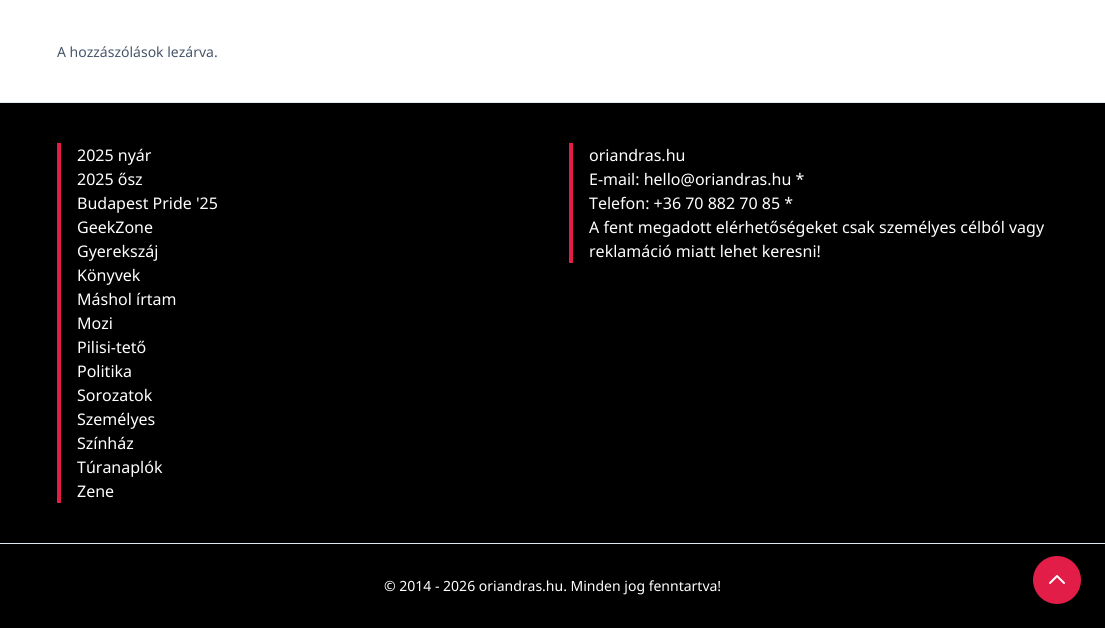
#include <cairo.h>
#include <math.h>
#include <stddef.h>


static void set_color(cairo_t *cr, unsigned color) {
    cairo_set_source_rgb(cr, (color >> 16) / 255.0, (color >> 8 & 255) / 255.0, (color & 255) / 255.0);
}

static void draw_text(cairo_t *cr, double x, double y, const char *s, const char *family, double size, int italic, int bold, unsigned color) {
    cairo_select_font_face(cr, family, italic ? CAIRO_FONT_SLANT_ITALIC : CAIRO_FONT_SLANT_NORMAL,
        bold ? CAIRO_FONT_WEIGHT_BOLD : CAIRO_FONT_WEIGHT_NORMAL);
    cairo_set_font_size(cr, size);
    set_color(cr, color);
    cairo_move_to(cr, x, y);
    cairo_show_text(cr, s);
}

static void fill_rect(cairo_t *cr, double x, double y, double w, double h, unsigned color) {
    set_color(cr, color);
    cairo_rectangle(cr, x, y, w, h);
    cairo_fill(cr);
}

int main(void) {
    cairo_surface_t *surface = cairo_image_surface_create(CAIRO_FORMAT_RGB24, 1105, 628);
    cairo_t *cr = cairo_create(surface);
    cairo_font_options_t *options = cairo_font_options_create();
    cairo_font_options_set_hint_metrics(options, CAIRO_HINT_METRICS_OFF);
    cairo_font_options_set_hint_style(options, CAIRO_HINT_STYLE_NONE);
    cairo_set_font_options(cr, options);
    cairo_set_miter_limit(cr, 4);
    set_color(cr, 0xFFFFFF);
    cairo_paint(cr);
    draw_text(cr, 57, 57, "A hozzászólások lezárva.", "Noto Sans", 14, 0, 0, 0x475569);
    fill_rect(cr, 0, 103, 1105, 525, 0x000000);
    fill_rect(cr, 0, 102, 1105, 1, 0xE2E8F0);
    fill_rect(cr, 57, 143, 4, 360, 0xE11D48);
    draw_text(cr, 77, 161, "2025 nyár", "Noto Sans", 16, 0, 0, 0xFFFFFF);
    draw_text(cr, 77, 185, "2025 ősz", "Noto Sans", 16, 0, 0, 0xFFFFFF);
    draw_text(cr, 77, 209, "Budapest Pride '25", "Noto Sans", 16, 0, 0, 0xFFFFFF);
    draw_text(cr, 77, 233, "GeekZone", "Noto Sans", 16, 0, 0, 0xFFFFFF);
    draw_text(cr, 77, 257, "Gyerekszáj", "Noto Sans", 16, 0, 0, 0xFFFFFF);
    draw_text(cr, 77, 281, "Könyvek", "Noto Sans", 16, 0, 0, 0xFFFFFF);
    draw_text(cr, 77, 305, "Máshol írtam", "Noto Sans", 16, 0, 0, 0xFFFFFF);
    draw_text(cr, 77, 329, "Mozi", "Noto Sans", 16, 0, 0, 0xFFFFFF);
    draw_text(cr, 77, 353, "Pilisi-tető", "Noto Sans", 16, 0, 0, 0xFFFFFF);
    draw_text(cr, 77, 377, "Politika", "Noto Sans", 16, 0, 0, 0xFFFFFF);
    draw_text(cr, 77, 401, "Sorozatok", "Noto Sans", 16, 0, 0, 0xFFFFFF);
    draw_text(cr, 77, 425, "Személyes", "Noto Sans", 16, 0, 0, 0xFFFFFF);
    draw_text(cr, 77, 449, "Színház", "Noto Sans", 16, 0, 0, 0xFFFFFF);
    draw_text(cr, 77, 473, "Túranaplók", "Noto Sans", 16, 0, 0, 0xFFFFFF);
    draw_text(cr, 77, 497, "Zene", "Noto Sans", 16, 0, 0, 0xFFFFFF);
    fill_rect(cr, 569, 143, 4, 120, 0xE11D48);
    draw_text(cr, 589, 161, "oriandras.hu", "Noto Sans", 16, 0, 0, 0xFFFFFF);
    draw_text(cr, 589, 185, "E-mail: hello@oriandras.hu *", "Noto Sans", 16, 0, 0, 0xFFFFFF);
    draw_text(cr, 589, 209, "Telefon: +36 70 882 70 85 *", "Noto Sans", 16, 0, 0, 0xFFFFFF);
    draw_text(cr, 589, 233, "A fent megadott elérhetőségeket csak személyes célból vagy", "Noto Sans", 16, 0, 0, 0xFFFFFF);
    draw_text(cr, 589, 257, "reklamáció miatt lehet keresni!", "Noto Sans", 16, 0, 0, 0xFFFFFF);
    fill_rect(cr, 0, 543, 1105, 1, 0xE2E8F0);
    draw_text(cr, 384, 591, "© 2014 - 2026 oriandras.hu. Minden jog fenntartva!", "Noto Sans", 14, 0, 0, 0xFFFFFF);
    set_color(cr, 0xE11D48);
    cairo_new_path(cr);
    cairo_arc(cr, 1057, 580, 24, 0, 2 * M_PI);
    cairo_fill(cr);
    cairo_new_path(cr);
    cairo_move_to(cr, 1050, 583);
    cairo_line_to(cr, 1057, 576);
    cairo_line_to(cr, 1064, 583);
    set_color(cr, 0xFFFFFF);
    cairo_set_line_cap(cr, CAIRO_LINE_CAP_ROUND);
    cairo_set_line_join(cr, CAIRO_LINE_JOIN_ROUND);
    cairo_stroke(cr);
    cairo_surface_write_to_png(surface, "output.png");
    cairo_font_options_destroy(options);
    cairo_destroy(cr);
    cairo_surface_destroy(surface);
    return 0;
}
